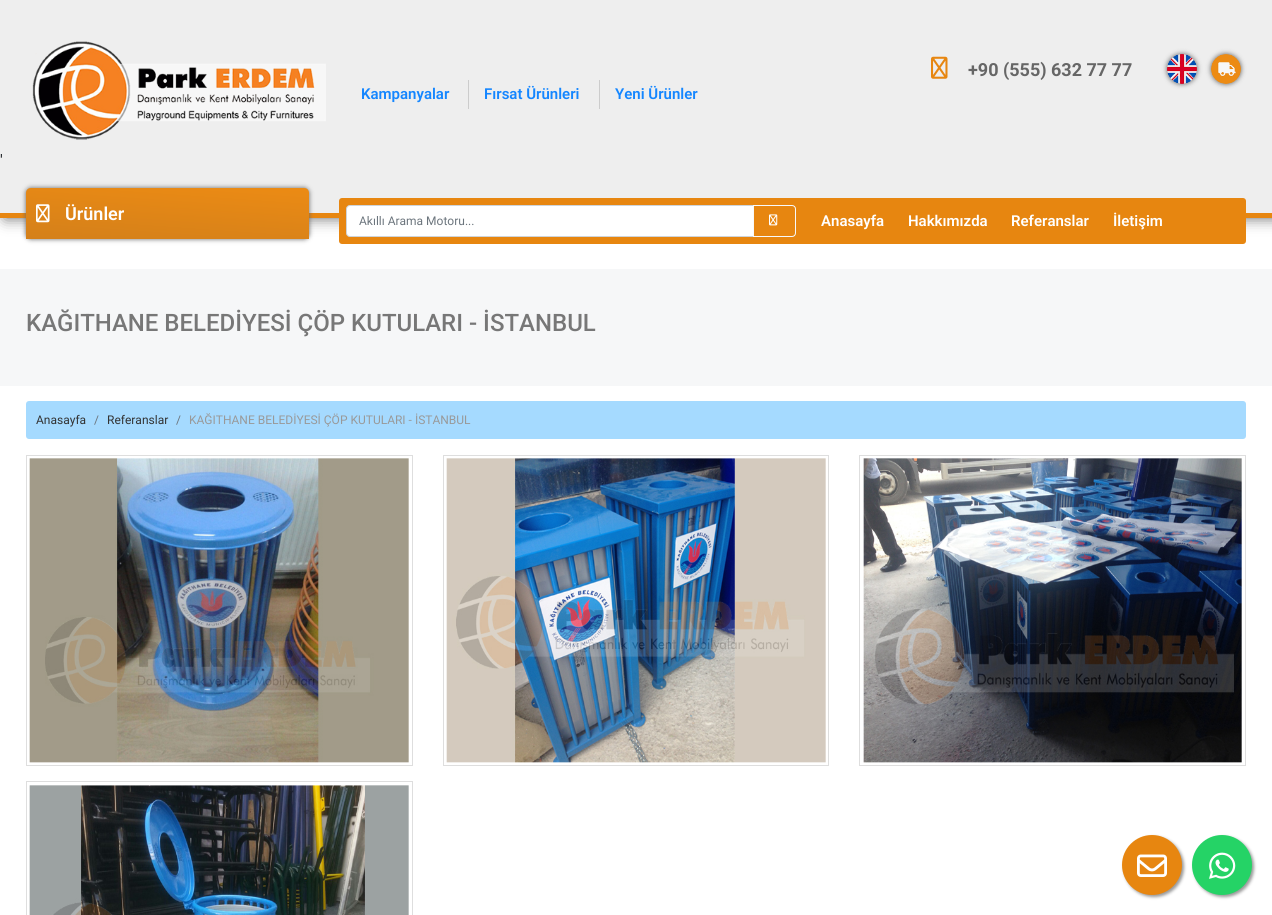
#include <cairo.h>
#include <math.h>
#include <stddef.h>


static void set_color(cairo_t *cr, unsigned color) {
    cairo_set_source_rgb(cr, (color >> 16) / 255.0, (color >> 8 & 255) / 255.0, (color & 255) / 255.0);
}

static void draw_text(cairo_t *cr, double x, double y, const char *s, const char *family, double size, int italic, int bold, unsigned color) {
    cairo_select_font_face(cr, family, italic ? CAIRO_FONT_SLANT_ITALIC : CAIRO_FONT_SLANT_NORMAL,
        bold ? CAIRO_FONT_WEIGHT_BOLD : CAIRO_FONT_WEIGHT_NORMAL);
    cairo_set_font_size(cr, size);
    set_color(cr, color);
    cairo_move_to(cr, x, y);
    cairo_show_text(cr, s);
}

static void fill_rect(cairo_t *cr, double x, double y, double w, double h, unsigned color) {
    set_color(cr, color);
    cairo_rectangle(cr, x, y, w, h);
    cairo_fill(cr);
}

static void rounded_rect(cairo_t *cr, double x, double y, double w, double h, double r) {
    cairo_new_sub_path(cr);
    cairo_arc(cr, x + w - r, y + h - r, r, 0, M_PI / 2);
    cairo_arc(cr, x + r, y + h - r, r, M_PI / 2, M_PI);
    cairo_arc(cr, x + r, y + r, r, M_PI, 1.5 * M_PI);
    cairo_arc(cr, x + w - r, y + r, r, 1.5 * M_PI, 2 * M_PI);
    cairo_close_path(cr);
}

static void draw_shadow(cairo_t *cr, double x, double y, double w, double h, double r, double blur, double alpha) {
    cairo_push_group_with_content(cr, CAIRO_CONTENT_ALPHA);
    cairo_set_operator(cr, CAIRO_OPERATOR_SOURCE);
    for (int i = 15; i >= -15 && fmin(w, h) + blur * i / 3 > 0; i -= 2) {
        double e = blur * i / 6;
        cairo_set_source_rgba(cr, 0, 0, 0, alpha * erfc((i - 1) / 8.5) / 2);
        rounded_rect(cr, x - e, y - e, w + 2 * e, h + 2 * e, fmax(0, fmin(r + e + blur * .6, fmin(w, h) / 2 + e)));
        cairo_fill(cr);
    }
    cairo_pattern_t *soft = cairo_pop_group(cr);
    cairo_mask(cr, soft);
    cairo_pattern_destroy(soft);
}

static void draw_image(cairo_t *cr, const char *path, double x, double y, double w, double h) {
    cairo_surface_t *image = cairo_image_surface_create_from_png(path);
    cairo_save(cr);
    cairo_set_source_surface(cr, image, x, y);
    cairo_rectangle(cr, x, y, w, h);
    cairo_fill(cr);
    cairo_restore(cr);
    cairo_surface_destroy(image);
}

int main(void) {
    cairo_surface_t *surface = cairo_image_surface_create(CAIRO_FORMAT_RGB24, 1272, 915);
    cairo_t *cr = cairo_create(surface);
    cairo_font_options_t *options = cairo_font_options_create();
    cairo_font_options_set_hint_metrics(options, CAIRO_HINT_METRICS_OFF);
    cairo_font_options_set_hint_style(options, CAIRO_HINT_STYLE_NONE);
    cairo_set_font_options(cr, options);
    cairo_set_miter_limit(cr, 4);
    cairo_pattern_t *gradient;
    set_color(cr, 0xFFFFFF);
    cairo_paint(cr);
    set_color(cr, 0x666666);
    draw_shadow(cr, 5, 0, 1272, 218, 0, 7.5, 1);
    fill_rect(cr, 0, 0, 1272, 213, 0xEEEEEE);
    fill_rect(cr, 0, 213, 1272, 5, 0xE78610);
    draw_image(cr, "assets/img1.png", 931, 56, 17, 23);
    draw_text(cr, 968, 76, "+90 (555) 632 77 77", "Roboto", 18, 0, 1, 0x666666);
    set_color(cr, 0x666666);
    draw_shadow(cr, 1167, 54, 30, 30, 15, 2.5, 1);
    draw_image(cr, "assets/img2.png", 1167, 54, 30, 30);
    draw_shadow(cr, 1211, 54, 30, 30, 15, 2.5, 1);
    draw_image(cr, "assets/img3.png", 1211, 54, 30, 30);
    draw_image(cr, "assets/img4.png", 32, 41, 294, 99);
    draw_text(cr, 361, 99, "Kampanyalar", "Roboto SemiBold", 15, 0, 0, 0x1486FF);
    fill_rect(cr, 468, 80, 1, 29, 0xCCCCCC);
    draw_text(cr, 484, 99, "Fırsat Ürünleri", "Roboto SemiBold", 15, 0, 0, 0x1486FF);
    fill_rect(cr, 599, 80, 1, 29, 0xCCCCCC);
    draw_text(cr, 615, 99, "Yeni Ürünler", "Roboto SemiBold", 15, 0, 0, 0x1486FF);
    draw_text(cr, 0, 166, "'", "Roboto", 16, 0, 0, 0x212529);
    set_color(cr, 0x666666);
    draw_shadow(cr, 26, 188, 283, 51, 5, 2.5, 1);
    gradient = cairo_pattern_create_linear(170, 178, 165, 249);
    cairo_pattern_add_color_stop_rgba(gradient, 0, 0.925, 0.545, 0.078, 1);
    cairo_pattern_add_color_stop_rgba(gradient, 1, 0.831, 0.502, 0.102, 1);
    cairo_set_source(cr, gradient);
    cairo_pattern_destroy(gradient);
    cairo_new_path(cr);
    cairo_move_to(cr, 31, 188);
    cairo_line_to(cr, 304, 188);
    cairo_curve_to(cr, 307, 188, 309, 190, 309, 193);
    cairo_line_to(cr, 309, 239);
    cairo_line_to(cr, 26, 239);
    cairo_line_to(cr, 26, 193);
    cairo_curve_to(cr, 26, 190, 28, 188, 31, 188);
    cairo_close_path(cr);
    cairo_fill(cr);
    draw_image(cr, "assets/img5.png", 36, 204, 14, 19);
    draw_text(cr, 65, 220, "Ürünler", "Roboto SemiBold", 18, 0, 0, 0xFFFFFF);
    set_color(cr, 0xE78610);
    rounded_rect(cr, 339, 198, 907, 46, 3);
    cairo_fill(cr);
    set_color(cr, 0xFFFFFF);
    cairo_new_path(cr);
    cairo_move_to(cr, 350, 205.5);
    cairo_line_to(cr, 753.5, 205.5);
    cairo_line_to(cr, 753.5, 236.5);
    cairo_line_to(cr, 350, 236.5);
    cairo_curve_to(cr, 348, 236.5, 346.5, 235, 346.5, 233);
    cairo_line_to(cr, 346.5, 209);
    cairo_curve_to(cr, 346.5, 207, 348, 205.5, 350, 205.5);
    cairo_close_path(cr);
    cairo_fill_preserve(cr);
    set_color(cr, 0xCED4DA);
    cairo_set_line_width(cr, 1);
    cairo_stroke(cr);
    draw_text(cr, 359, 225, "Akıllı Arama Motoru...", "Roboto", 12, 0, 0, 0x6C757D);
    set_color(cr, 0xE78610);
    cairo_new_path(cr);
    cairo_move_to(cr, 753.5, 205.5);
    cairo_line_to(cr, 792, 205.5);
    cairo_curve_to(cr, 794, 205.5, 795.5, 207, 795.5, 209);
    cairo_line_to(cr, 795.5, 233);
    cairo_curve_to(cr, 795.5, 235, 794, 236.5, 792, 236.5);
    cairo_line_to(cr, 753.5, 236.5);
    cairo_close_path(cr);
    cairo_fill_preserve(cr);
    set_color(cr, 0xF8F9FA);
    cairo_stroke(cr);
    draw_image(cr, "assets/img6.png", 769, 214, 9, 12);
    draw_text(cr, 821, 226, "Anasayfa", "Roboto SemiBold", 15, 0, 0, 0xFFFFFF);
    draw_text(cr, 908, 226, "Hakkımızda", "Roboto SemiBold", 15, 0, 0, 0xFFFFFF);
    draw_text(cr, 1011, 226, "Referanslar", "Roboto SemiBold", 15, 0, 0, 0xFFFFFF);
    draw_text(cr, 1113, 226, "İletişim", "Roboto SemiBold", 15, 0, 0, 0xFFFFFF);
    fill_rect(cr, 0, 269, 1272, 117, 0xF6F7F8);
    draw_text(cr, 26, 331, "KAĞITHANE BELEDİYESİ ÇÖP KUTULARI - İSTANBUL", "Roboto Medium", 24, 0, 0, 0x777777);
    set_color(cr, 0xA5DAFF);
    rounded_rect(cr, 26, 401, 1220, 38, 3);
    cairo_fill(cr);
    draw_text(cr, 36, 424, "Anasayfa", "Roboto", 12, 0, 0, 0x333333);
    draw_text(cr, 94, 424, "/", "Roboto", 12, 0, 0, 0x6C757D);
    draw_text(cr, 107, 424, "Referanslar", "Roboto", 12, 0, 0, 0x333333);
    draw_text(cr, 176, 424, "/", "Roboto", 12, 0, 0, 0x6C757D);
    draw_text(cr, 189, 424, "KAĞITHANE BELEDİYESİ ÇÖP KUTULARI - İSTANBUL", "Roboto", 12, 0, 0, 0x999999);
    cairo_rectangle(cr, 26.5, 455.5, 386, 310);
    set_color(cr, 0xDEDEDE);
    cairo_stroke(cr);
    draw_image(cr, "assets/img7.png", 29, 458, 380, 305);
    cairo_rectangle(cr, 443.5, 455.5, 385, 310);
    cairo_stroke(cr);
    draw_image(cr, "assets/img8.png", 446, 458, 380, 305);
    cairo_rectangle(cr, 859.5, 455.5, 386, 310);
    cairo_stroke(cr);
    draw_image(cr, "assets/img9.png", 863, 458, 379, 305);
    cairo_rectangle(cr, 26.5, 781.5, 386, 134);
    cairo_stroke(cr);
    draw_image(cr, "assets/img10.png", 29, 785, 380, 130);
    set_color(cr, 0x999999);
    draw_shadow(cr, 1124, 837, 60, 60, 30, 1.5, 1);
    set_color(cr, 0xE78610);
    cairo_arc(cr, 1152, 865, 30, 0, 2 * M_PI);
    cairo_fill(cr);
    draw_image(cr, "assets/img11.png", 1137, 854, 30, 23);
    set_color(cr, 0x999999);
    draw_shadow(cr, 1194, 837, 60, 60, 30, 1.5, 1);
    set_color(cr, 0x25D366);
    cairo_arc(cr, 1222, 865, 30, 0, 2 * M_PI);
    cairo_fill(cr);
    draw_image(cr, "assets/img12.png", 1209, 852, 27, 27);
    cairo_surface_write_to_png(surface, "output.png");
    cairo_font_options_destroy(options);
    cairo_destroy(cr);
    cairo_surface_destroy(surface);
    return 0;
}
